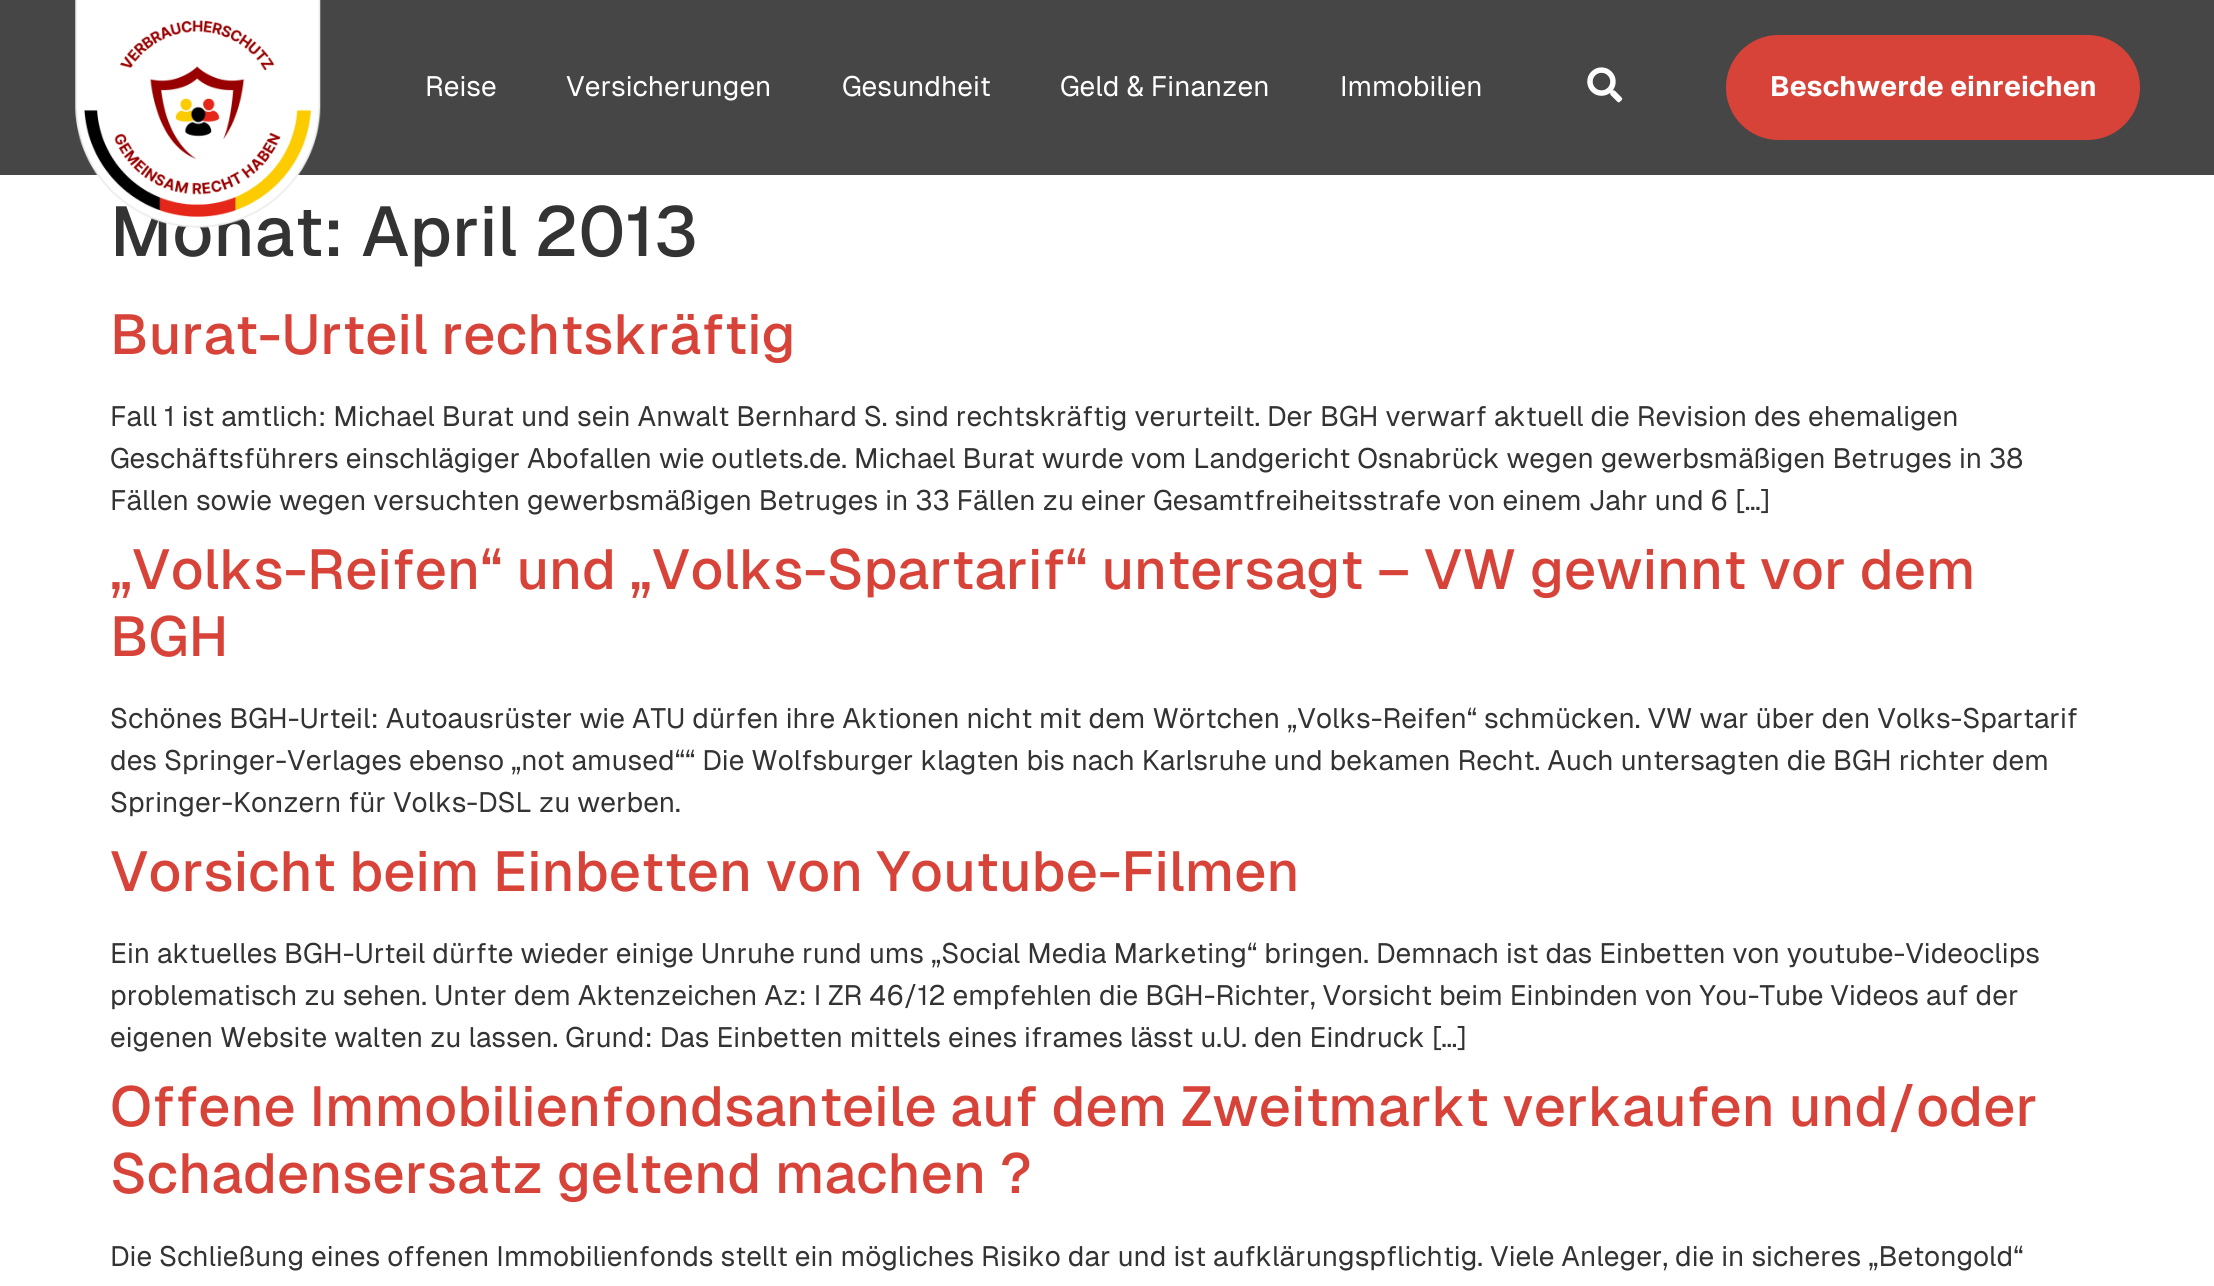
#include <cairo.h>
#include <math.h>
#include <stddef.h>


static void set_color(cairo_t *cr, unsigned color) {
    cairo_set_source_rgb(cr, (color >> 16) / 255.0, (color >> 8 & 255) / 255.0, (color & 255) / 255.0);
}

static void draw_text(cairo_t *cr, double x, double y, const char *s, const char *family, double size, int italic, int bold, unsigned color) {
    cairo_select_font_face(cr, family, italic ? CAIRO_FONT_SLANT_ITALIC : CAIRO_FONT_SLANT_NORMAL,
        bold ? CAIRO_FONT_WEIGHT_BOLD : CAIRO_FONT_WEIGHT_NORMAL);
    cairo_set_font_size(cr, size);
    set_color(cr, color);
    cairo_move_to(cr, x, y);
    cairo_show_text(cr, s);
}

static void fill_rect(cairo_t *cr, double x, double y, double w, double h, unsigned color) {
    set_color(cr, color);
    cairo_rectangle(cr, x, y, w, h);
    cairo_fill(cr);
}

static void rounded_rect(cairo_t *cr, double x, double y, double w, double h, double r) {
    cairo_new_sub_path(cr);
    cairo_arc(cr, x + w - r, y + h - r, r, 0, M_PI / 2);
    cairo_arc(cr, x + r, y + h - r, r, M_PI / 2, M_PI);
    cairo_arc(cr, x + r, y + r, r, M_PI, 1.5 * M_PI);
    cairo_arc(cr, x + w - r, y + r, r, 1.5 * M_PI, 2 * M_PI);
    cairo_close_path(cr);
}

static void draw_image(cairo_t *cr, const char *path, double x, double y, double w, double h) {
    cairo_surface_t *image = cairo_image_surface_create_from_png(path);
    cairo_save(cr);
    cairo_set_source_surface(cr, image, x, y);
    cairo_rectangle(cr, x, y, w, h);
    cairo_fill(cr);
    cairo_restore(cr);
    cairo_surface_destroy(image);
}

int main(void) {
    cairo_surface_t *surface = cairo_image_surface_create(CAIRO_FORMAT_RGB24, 2214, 1286);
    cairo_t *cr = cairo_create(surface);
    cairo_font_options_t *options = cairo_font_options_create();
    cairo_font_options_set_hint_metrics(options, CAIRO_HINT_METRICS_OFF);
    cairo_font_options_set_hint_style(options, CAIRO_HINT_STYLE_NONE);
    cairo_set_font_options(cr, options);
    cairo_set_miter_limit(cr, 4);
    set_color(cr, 0xFFFFFF);
    cairo_paint(cr);
    fill_rect(cr, 0, 0, 2214, 175, 0x464646);
    draw_text(cr, 110, 256, "Monat: April 2013", "Geist Medium", 70, 0, 0, 0x333333);
    draw_image(cr, "assets/img1.png", 75, 0, 246, 228);
    draw_text(cr, 425, 96, "Reise", "Geist", 28, 0, 0, 0xFFFFFF);
    draw_text(cr, 566, 96, "Versicherungen", "Geist", 28, 0, 0, 0xFFFFFF);
    draw_text(cr, 842, 96, "Gesundheit", "Geist", 28, 0, 0, 0xFFFFFF);
    draw_text(cr, 1060, 96, "Geld & Finanzen", "Geist", 28, 0, 0, 0xFFFFFF);
    draw_text(cr, 1340, 96, "Immobilien", "Geist", 28, 0, 0, 0xFFFFFF);
    draw_image(cr, "assets/img2.png", 1587, 67, 36, 36);
    set_color(cr, 0xD74339);
    rounded_rect(cr, 1727, 36, 412, 103, 51.5);
    cairo_fill_preserve(cr);
    cairo_stroke(cr);
    draw_text(cr, 1770, 96, "Beschwerde einreichen", "Geist", 28, 0, 1, 0xFFFFFF);
    draw_text(cr, 110, 354, "Burat-Urteil rechtskräftig", "Geist Medium", 56, 0, 0, 0xD74339);
    draw_text(cr, 110, 426, "Fall 1 ist amtlich: Michael Burat und sein Anwalt Bernhard S. sind rechtskräftig verurteilt. Der BGH verwarf aktuell die Revision des ehemaligen", "Geist", 28, 0, 0, 0x333333);
    draw_text(cr, 110, 468, "Geschäftsführers einschlägiger Abofallen wie outlets.de. Michael Burat wurde vom Landgericht Osnabrück wegen gewerbsmäßigen Betruges in 38", "Geist", 28, 0, 0, 0x333333);
    draw_text(cr, 110, 510, "Fällen sowie wegen versuchten gewerbsmäßigen Betruges in 33 Fällen zu einer Gesamtfreiheitsstrafe von einem Jahr und 6 […]", "Geist", 28, 0, 0, 0x333333);
    draw_text(cr, 110, 589, "„Volks-Reifen“ und „Volks-Spartarif“ untersagt – VW gewinnt vor dem", "Geist Medium", 56, 0, 0, 0xD74339);
    draw_text(cr, 110, 656, "BGH", "Geist Medium", 56, 0, 0, 0xD74339);
    draw_text(cr, 110, 728, "Schönes BGH-Urteil: Autoausrüster wie ATU dürfen ihre Aktionen nicht mit dem Wörtchen „Volks-Reifen“ schmücken. VW war über den Volks-Spartarif", "Geist", 28, 0, 0, 0x333333);
    draw_text(cr, 110, 770, "des Springer-Verlages ebenso „not amused““ Die Wolfsburger klagten bis nach Karlsruhe und bekamen Recht. Auch untersagten die BGH richter dem", "Geist", 28, 0, 0, 0x333333);
    draw_text(cr, 110, 812, "Springer-Konzern für Volks-DSL zu werben.", "Geist", 28, 0, 0, 0x333333);
    draw_text(cr, 110, 891, "Vorsicht beim Einbetten von Youtube-Filmen", "Geist Medium", 56, 0, 0, 0xD74339);
    draw_text(cr, 110, 963, "Ein aktuelles BGH-Urteil dürfte wieder einige Unruhe rund ums „Social Media Marketing“ bringen. Demnach ist das Einbetten von youtube-Videoclips", "Geist", 28, 0, 0, 0x333333);
    draw_text(cr, 110, 1005, "problematisch zu sehen. Unter dem Aktenzeichen Az: I ZR 46/12 empfehlen die BGH-Richter, Vorsicht beim Einbinden von You-Tube Videos auf der", "Geist", 28, 0, 0, 0x333333);
    draw_text(cr, 110, 1047, "eigenen Website walten zu lassen. Grund: Das Einbetten mittels eines iframes lässt u.U. den Eindruck […]", "Geist", 28, 0, 0, 0x333333);
    draw_text(cr, 110, 1126, "Offene Immobilienfondsanteile auf dem Zweitmarkt verkaufen und/oder", "Geist Medium", 56, 0, 0, 0xD74339);
    draw_text(cr, 110, 1193, "Schadensersatz geltend machen ?", "Geist Medium", 56, 0, 0, 0xD74339);
    draw_text(cr, 110, 1266, "Die Schließung eines offenen Immobilienfonds stellt ein mögliches Risiko dar und ist aufklärungspflichtig. Viele Anleger, die in sicheres „Betongold“", "Geist", 28, 0, 0, 0x333333);
    cairo_surface_write_to_png(surface, "output.png");
    cairo_font_options_destroy(options);
    cairo_destroy(cr);
    cairo_surface_destroy(surface);
    return 0;
}
